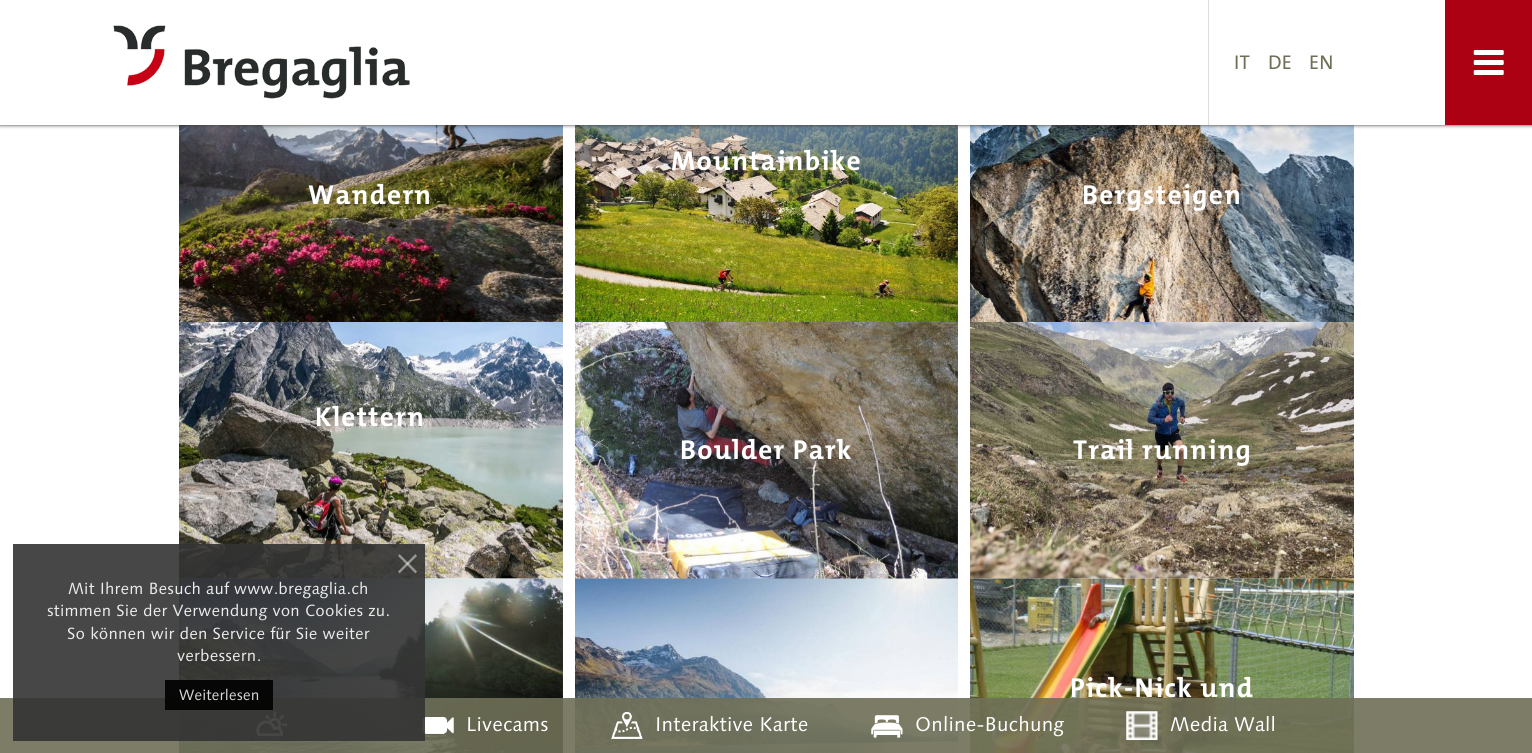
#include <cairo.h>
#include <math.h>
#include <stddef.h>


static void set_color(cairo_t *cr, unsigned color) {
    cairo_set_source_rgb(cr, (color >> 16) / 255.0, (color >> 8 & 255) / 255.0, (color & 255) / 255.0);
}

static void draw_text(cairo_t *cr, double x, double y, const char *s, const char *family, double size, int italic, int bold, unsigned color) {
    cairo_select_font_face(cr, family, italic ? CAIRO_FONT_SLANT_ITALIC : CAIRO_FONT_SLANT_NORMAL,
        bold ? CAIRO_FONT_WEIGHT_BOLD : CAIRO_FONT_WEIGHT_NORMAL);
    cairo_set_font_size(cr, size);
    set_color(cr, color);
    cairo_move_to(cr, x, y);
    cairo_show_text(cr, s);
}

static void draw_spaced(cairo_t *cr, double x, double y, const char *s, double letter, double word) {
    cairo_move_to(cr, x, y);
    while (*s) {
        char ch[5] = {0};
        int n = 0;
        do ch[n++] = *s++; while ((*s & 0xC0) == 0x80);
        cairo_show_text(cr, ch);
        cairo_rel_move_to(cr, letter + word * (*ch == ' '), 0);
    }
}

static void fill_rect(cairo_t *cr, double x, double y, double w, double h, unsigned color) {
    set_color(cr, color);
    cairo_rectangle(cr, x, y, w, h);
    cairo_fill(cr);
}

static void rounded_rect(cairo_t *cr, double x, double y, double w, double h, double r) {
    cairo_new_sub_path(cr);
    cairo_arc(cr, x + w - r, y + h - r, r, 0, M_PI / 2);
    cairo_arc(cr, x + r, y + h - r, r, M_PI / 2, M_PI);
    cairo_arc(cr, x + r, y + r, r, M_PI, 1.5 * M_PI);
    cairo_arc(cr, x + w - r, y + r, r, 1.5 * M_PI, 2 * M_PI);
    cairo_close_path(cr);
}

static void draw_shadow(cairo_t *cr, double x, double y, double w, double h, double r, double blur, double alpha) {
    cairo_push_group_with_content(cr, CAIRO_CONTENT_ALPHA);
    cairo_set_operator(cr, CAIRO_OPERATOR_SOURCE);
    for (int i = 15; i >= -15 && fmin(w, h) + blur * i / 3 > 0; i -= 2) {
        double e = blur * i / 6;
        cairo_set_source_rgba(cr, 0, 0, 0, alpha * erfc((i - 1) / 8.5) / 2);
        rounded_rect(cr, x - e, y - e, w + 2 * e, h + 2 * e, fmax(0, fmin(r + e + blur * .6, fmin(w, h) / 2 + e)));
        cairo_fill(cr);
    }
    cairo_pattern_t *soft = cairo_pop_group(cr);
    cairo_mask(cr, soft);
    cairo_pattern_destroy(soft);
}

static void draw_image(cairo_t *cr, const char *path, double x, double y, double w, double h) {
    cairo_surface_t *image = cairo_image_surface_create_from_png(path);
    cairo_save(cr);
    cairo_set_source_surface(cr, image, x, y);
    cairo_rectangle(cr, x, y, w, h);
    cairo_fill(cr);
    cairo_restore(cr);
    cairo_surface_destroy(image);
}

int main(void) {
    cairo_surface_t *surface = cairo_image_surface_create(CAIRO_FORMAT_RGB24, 1532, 753);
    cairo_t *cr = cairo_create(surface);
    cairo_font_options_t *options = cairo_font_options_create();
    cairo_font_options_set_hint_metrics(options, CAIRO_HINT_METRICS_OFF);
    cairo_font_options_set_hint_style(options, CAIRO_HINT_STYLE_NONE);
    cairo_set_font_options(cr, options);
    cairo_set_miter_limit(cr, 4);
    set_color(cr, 0xFFFFFF);
    cairo_paint(cr);
    draw_image(cr, "assets/img3.png", 575, 125, 383, 198);
    draw_image(cr, "assets/img4.png", 179, 125, 384, 197);
    draw_image(cr, "assets/img5.png", 970, 125, 384, 197);
    set_color(cr, 0x333333);
    draw_shadow(cr, 0, 0, 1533, 125, 0, 2, 1);
    fill_rect(cr, 0, 0, 1445, 125, 0xFFFFFF);
    draw_image(cr, "assets/img1.png", 113, 25, 297, 74);
    fill_rect(cr, 1208, 0, 1, 125, 0xDEDEDE);
    cairo_select_font_face(cr, "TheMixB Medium", CAIRO_FONT_SLANT_NORMAL, CAIRO_FONT_WEIGHT_NORMAL);
    cairo_set_font_size(cr, 20);
    set_color(cr, 0x6F6F57);
    draw_spaced(cr, 1234, 69, "IT", 0.2, 0);
    draw_spaced(cr, 1268, 69, "DE", 0.2, 0);
    draw_spaced(cr, 1309, 69, "EN", 0.2, 0);
    fill_rect(cr, 1445, 0, 87, 125, 0xAC0013);
    draw_image(cr, "assets/img2.png", 1473, 50, 31, 25);
    draw_image(cr, "assets/img6.png", 179, 322, 384, 257);
    draw_image(cr, "assets/img9.png", 179, 578, 384, 175);
    draw_image(cr, "assets/img7.png", 575, 322, 383, 257);
    draw_image(cr, "assets/img10.png", 575, 578, 383, 175);
    draw_image(cr, "assets/img8.png", 970, 322, 384, 257);
    draw_image(cr, "assets/img11.png", 970, 578, 384, 175);
    cairo_set_source_rgba(cr, 0.435, 0.435, 0.341, 0.9);
    cairo_rectangle(cr, 0, 698, 1532, 55);
    cairo_fill(cr);
    draw_image(cr, "assets/img12.png", 256, 711, 32, 26);
    draw_image(cr, "assets/img13.png", 422, 717, 32, 17);
    cairo_set_source_rgba(cr, 0.2, 0.2, 0.2, 0.9);
    cairo_rectangle(cr, 13, 544, 412, 197);
    cairo_fill(cr);
    cairo_select_font_face(cr, "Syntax", CAIRO_FONT_SLANT_NORMAL, CAIRO_FONT_WEIGHT_NORMAL);
    cairo_set_font_size(cr, 16.25);
    set_color(cr, 0xECECEC);
    draw_spaced(cr, 68, 594, "Mit Ihrem Besuch auf www.bregaglia.ch", 0.2, 0);
    draw_spaced(cr, 47, 616, "stimmen Sie der Verwendung von Cookies zu.", 0.2, 0);
    draw_spaced(cr, 67, 639, "So können wir den Service für Sie weiter", 0.2, 0);
    draw_spaced(cr, 177, 661, "verbessern.", 0.2, 0);
    cairo_set_source_rgba(cr, 1, 1, 1, 0.45);
    cairo_new_path(cr);
    cairo_move_to(cr, 415.5, 554);
    cairo_line_to(cr, 417, 556);
    cairo_line_to(cr, 399.5, 573.5);
    cairo_line_to(cr, 398, 571.5);
    cairo_close_path(cr);
    cairo_fill(cr);
    cairo_new_path(cr);
    cairo_move_to(cr, 398, 556);
    cairo_line_to(cr, 399.5, 554);
    cairo_line_to(cr, 417, 571.5);
    cairo_line_to(cr, 415.5, 573.5);
    cairo_close_path(cr);
    cairo_fill(cr);
    cairo_set_source_rgba(cr, 0, 0, 0, 0.9);
    cairo_rectangle(cr, 165, 680, 108, 30);
    cairo_fill(cr);
    draw_text(cr, 179, 700, "Weiterlesen", "Syntax", 15, 0, 0, 0xD7D7D7);
    cairo_select_font_face(cr, "TheMixB", CAIRO_FONT_SLANT_NORMAL, CAIRO_FONT_WEIGHT_BOLD);
    cairo_set_font_size(cr, 27.5);
    set_color(cr, 0xFFFFFF);
    draw_spaced(cr, 671, 170, "Mountainbike", 1.25, 0);
    draw_spaced(cr, 308, 204, "Wandern", 1.25, 0);
    draw_spaced(cr, 1082, 204, "Bergsteigen", 1.25, 0);
    draw_spaced(cr, 315, 426, "Klettern", 1.25, 0);
    draw_spaced(cr, 680, 459, "Boulder Park", 1.25, 0);
    draw_spaced(cr, 1073, 459, "Trail running", 1.25, 0);
    draw_spaced(cr, 1070, 697, "Pick-Nick und", 1.25, 0);
    cairo_select_font_face(cr, "Syntax", CAIRO_FONT_SLANT_NORMAL, CAIRO_FONT_WEIGHT_NORMAL);
    cairo_set_font_size(cr, 20);
    draw_spaced(cr, 466, 731, "Livecams", 0.2, 0);
    draw_image(cr, "assets/img14.png", 611, 712, 32, 27);
    draw_spaced(cr, 655, 731, "Interaktive Karte", 0.2, 0);
    draw_image(cr, "assets/img15.png", 871, 715, 32, 23);
    draw_spaced(cr, 915, 731, "Online-Buchung", 0.2, 0);
    draw_image(cr, "assets/img16.png", 1126, 711, 32, 29);
    draw_spaced(cr, 1170, 731, "Media Wall", 0.2, 0);
    cairo_surface_write_to_png(surface, "output.png");
    cairo_font_options_destroy(options);
    cairo_destroy(cr);
    cairo_surface_destroy(surface);
    return 0;
}
